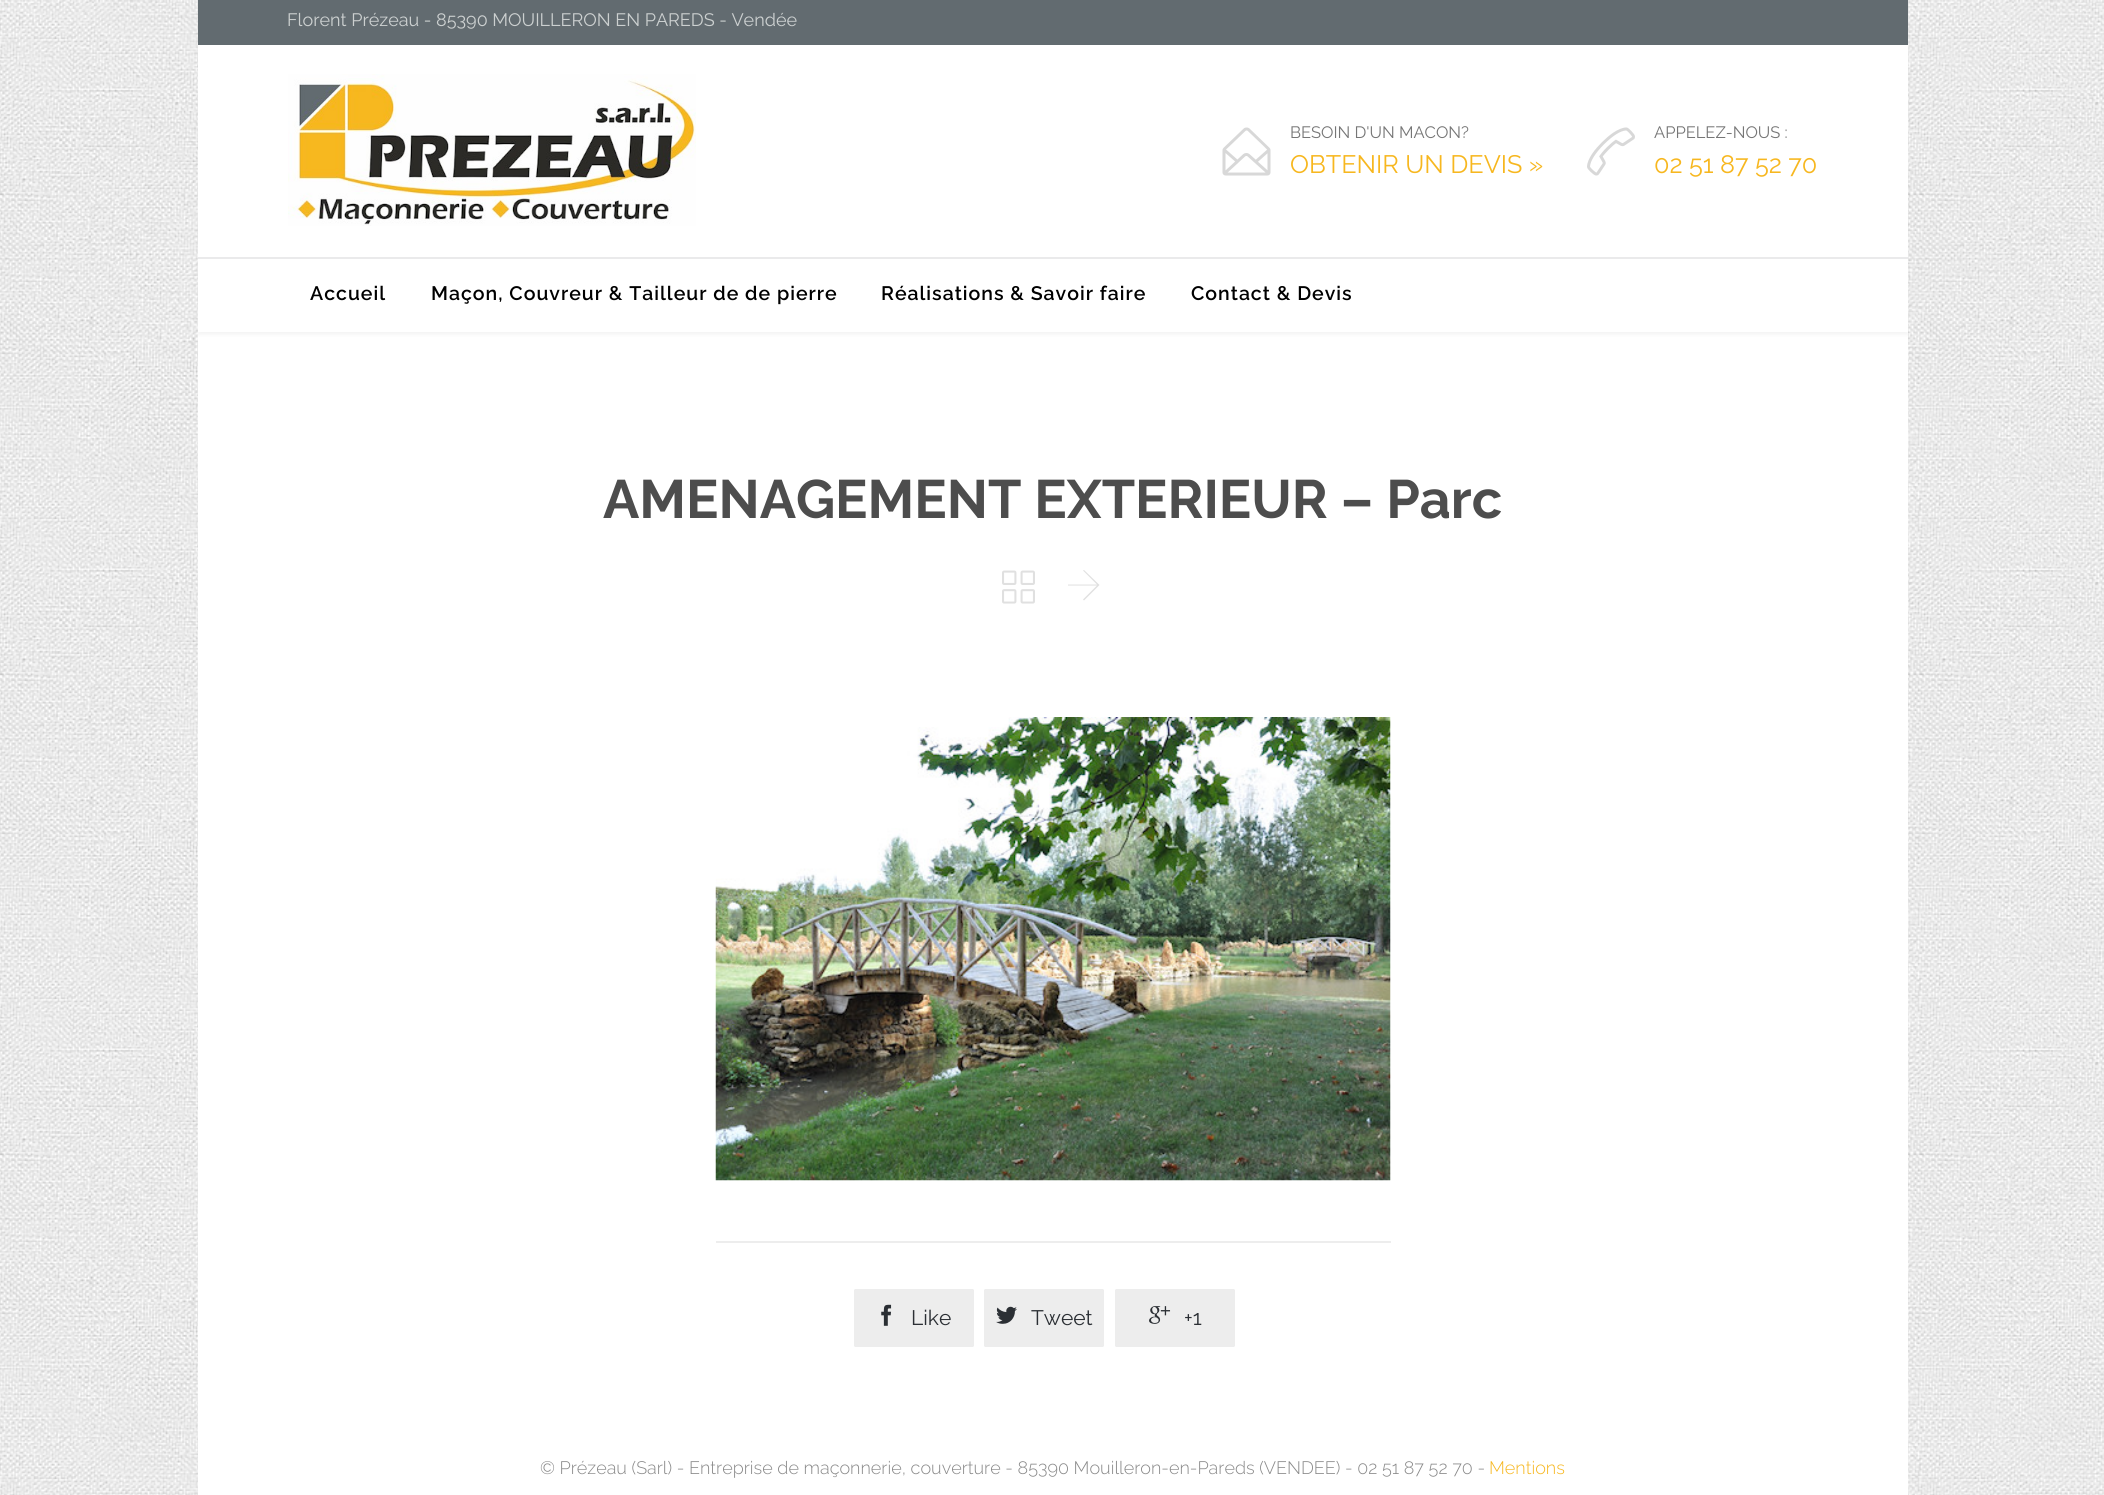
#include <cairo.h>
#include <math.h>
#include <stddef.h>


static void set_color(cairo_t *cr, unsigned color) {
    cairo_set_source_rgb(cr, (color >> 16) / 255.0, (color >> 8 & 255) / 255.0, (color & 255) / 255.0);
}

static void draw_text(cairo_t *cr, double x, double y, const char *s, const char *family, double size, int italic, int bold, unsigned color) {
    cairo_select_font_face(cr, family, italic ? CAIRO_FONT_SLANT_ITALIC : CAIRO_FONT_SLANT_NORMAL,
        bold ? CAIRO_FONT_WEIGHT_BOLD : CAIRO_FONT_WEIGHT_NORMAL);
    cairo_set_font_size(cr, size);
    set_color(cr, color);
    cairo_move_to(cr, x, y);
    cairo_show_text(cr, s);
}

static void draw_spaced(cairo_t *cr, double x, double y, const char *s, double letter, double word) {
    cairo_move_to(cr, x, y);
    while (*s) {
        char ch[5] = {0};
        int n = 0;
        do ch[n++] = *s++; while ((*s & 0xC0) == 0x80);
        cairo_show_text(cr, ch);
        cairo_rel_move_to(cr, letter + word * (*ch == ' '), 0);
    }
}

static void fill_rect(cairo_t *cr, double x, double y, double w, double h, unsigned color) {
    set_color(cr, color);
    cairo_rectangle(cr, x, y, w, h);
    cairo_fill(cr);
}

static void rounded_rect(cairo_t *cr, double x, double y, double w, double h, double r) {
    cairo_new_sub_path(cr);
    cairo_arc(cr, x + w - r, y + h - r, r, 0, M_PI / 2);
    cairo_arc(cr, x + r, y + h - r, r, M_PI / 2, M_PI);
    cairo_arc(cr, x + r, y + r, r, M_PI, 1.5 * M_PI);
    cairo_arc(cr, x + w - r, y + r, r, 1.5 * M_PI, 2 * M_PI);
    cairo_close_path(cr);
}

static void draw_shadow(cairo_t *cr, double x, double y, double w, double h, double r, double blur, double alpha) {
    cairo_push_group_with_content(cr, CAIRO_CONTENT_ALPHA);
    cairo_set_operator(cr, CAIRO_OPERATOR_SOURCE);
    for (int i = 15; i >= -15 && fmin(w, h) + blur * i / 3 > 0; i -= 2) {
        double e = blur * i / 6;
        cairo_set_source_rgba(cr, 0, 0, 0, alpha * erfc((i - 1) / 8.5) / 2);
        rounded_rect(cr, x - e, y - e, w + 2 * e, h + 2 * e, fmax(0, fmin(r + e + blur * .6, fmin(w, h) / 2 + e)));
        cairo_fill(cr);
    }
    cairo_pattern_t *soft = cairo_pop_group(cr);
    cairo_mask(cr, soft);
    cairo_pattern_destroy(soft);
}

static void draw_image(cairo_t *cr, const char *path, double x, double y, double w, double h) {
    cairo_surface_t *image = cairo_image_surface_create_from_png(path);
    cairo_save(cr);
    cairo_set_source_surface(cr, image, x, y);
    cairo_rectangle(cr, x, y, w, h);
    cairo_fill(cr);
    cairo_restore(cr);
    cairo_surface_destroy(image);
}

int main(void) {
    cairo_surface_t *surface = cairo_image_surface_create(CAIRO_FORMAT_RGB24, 2104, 1495);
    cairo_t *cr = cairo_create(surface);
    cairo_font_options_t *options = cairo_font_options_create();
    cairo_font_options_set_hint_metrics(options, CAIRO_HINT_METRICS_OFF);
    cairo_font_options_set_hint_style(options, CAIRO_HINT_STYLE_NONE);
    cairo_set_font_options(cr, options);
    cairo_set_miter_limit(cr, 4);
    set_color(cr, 0xFFFFFF);
    cairo_paint(cr);
    draw_image(cr, "assets/img1.png", 0, 0, 2104, 1495);
    fill_rect(cr, 198, 332, 1710, 1163, 0xFFFFFF);
    set_color(cr, 0x000000);
    draw_shadow(cr, 198, -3, 1710, 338, 0, 1.5, 0.04);
    fill_rect(cr, 198, 0, 1710, 45, 0x626B70);
    draw_text(cr, 287, 26, "Florent Prézeau - 85390 MOUILLERON EN PAREDS - Vendée", "Raleway", 18, 0, 0, 0xCCD0D0);
    fill_rect(cr, 198, 45, 1710, 212, 0xFFFFFF);
    draw_image(cr, "assets/img2.png", 288, 74, 408, 152);
    draw_image(cr, "assets/img3.png", 1222, 127, 49, 49);
    draw_text(cr, 1290, 138, "BESOIN D'UN MACON?", "Raleway", 16.5, 0, 0, 0x767676);
    draw_text(cr, 1290, 173, "OBTENIR UN DEVIS »", "Raleway", 25.25, 0, 0, 0xF7B71F);
    draw_image(cr, "assets/img4.png", 1587, 127, 48, 49);
    draw_text(cr, 1654, 138, "APPELEZ-NOUS :", "Raleway", 16.5, 0, 0, 0x767676);
    draw_text(cr, 1654, 173, "02 51 87 52 70", "Raleway", 25.25, 0, 0, 0xF7B71F);
    fill_rect(cr, 198, 259, 1710, 73, 0xFFFFFF);
    fill_rect(cr, 198, 257, 1710, 2, 0xEAEAEB);
    cairo_select_font_face(cr, "Raleway SemiBold", CAIRO_FONT_SLANT_NORMAL, CAIRO_FONT_WEIGHT_NORMAL);
    cairo_set_font_size(cr, 19.5);
    set_color(cr, 0x000000);
    draw_spaced(cr, 310, 300, "Accueil", 1, 0);
    draw_spaced(cr, 431, 300, "Maçon, Couvreur & Tailleur de de pierre", 1, 0);
    draw_spaced(cr, 881, 300, "Réalisations & Savoir faire", 1, 0);
    draw_spaced(cr, 1191, 300, "Contact & Devis", 1, 0);
    draw_text(cr, 603, 518, "AMENAGEMENT EXTERIEUR – Parc", "Raleway", 54, 0, 1, 0x4D4D4D);
    draw_image(cr, "assets/img5.png", 1002, 570, 33, 34);
    set_color(cr, 0xE0E0E0);
    cairo_new_path(cr);
    cairo_move_to(cr, 1098.5, 586);
    cairo_line_to(cr, 1084, 600.5);
    cairo_line_to(cr, 1083, 599.5);
    cairo_line_to(cr, 1097, 585.5);
    cairo_line_to(cr, 1068, 585.5);
    cairo_line_to(cr, 1068, 584.5);
    cairo_line_to(cr, 1097, 584.5);
    cairo_line_to(cr, 1083, 570.5);
    cairo_line_to(cr, 1084, 570);
    cairo_line_to(cr, 1099.5, 585);
    cairo_close_path(cr);
    cairo_fill(cr);
    draw_image(cr, "assets/img6.png", 715, 717, 676, 464);
    fill_rect(cr, 716, 1241, 675, 2, 0xEDEDED);
    rounded_rect(cr, 854, 1289, 120, 58, 1.5);
    cairo_fill(cr);
    draw_image(cr, "assets/img7.png", 881, 1304, 11, 22);
    draw_text(cr, 911, 1325, "Like", "Raleway", 21, 0, 0, 0x2B2F34);
    set_color(cr, 0xEDEDED);
    rounded_rect(cr, 984, 1289, 120, 58, 1.5);
    cairo_fill(cr);
    draw_image(cr, "assets/img8.png", 996, 1306, 21, 18);
    draw_text(cr, 1031, 1325, "Tweet", "Raleway", 21, 0, 0, 0x2B2F34);
    set_color(cr, 0xEDEDED);
    rounded_rect(cr, 1115, 1289, 120, 58, 1.5);
    cairo_fill(cr);
    draw_image(cr, "assets/img9.png", 1149, 1306, 22, 18);
    draw_text(cr, 1184, 1325, "+1", "Raleway", 21, 0, 0, 0x2B2F34);
    draw_text(cr, 540, 1474, "© Prézeau (Sarl) - Entreprise de maçonnerie, couverture - 85390 Mouilleron-en-Pareds (VENDEE) - 02 51 87 52 70 -", "Raleway Light", 18, 0, 0, 0x898989);
    draw_text(cr, 1489, 1474, "Mentions", "Raleway Light", 18, 0, 0, 0xF7B71F);
    cairo_surface_write_to_png(surface, "output.png");
    cairo_font_options_destroy(options);
    cairo_destroy(cr);
    cairo_surface_destroy(surface);
    return 0;
}
